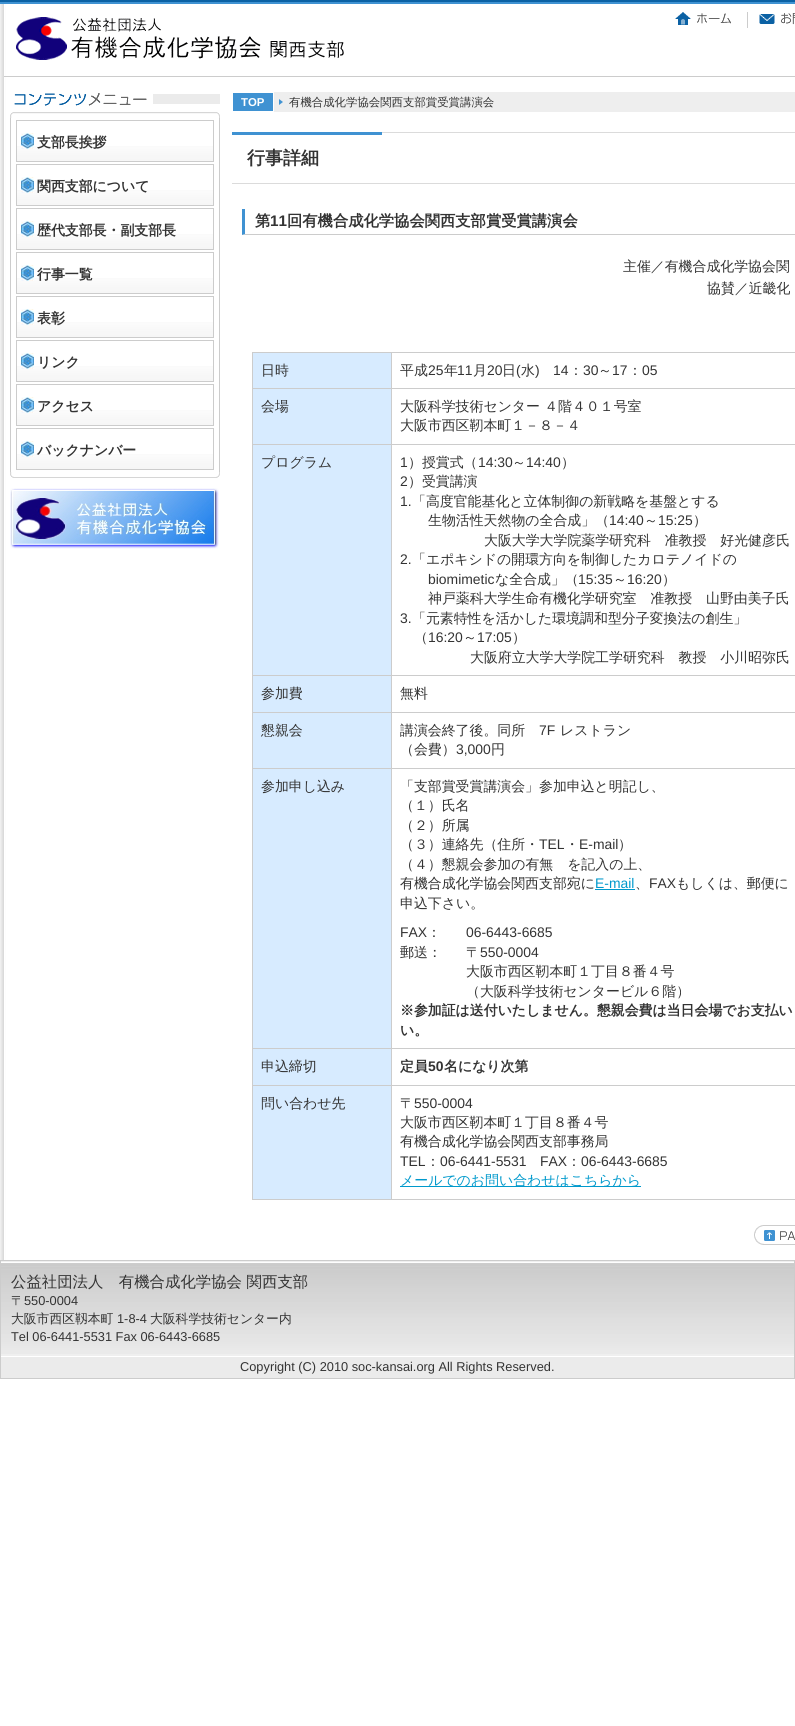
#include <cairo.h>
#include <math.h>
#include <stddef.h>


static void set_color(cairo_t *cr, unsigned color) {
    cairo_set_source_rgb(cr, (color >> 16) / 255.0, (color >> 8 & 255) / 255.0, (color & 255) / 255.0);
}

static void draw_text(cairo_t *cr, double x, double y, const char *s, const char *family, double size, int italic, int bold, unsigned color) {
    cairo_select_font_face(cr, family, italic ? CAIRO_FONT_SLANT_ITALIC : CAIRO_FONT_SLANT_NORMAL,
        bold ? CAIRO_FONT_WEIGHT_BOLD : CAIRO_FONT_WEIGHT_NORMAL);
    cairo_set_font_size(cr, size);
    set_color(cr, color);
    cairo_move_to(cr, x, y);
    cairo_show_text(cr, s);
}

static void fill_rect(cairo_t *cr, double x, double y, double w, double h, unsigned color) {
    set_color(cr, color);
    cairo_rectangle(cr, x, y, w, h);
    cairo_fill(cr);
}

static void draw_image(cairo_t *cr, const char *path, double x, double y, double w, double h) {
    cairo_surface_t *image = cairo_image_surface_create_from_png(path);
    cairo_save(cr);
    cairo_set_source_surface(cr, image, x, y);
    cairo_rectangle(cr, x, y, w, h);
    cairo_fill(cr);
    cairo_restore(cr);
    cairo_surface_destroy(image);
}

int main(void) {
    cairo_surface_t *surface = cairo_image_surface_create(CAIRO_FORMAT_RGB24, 795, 1726);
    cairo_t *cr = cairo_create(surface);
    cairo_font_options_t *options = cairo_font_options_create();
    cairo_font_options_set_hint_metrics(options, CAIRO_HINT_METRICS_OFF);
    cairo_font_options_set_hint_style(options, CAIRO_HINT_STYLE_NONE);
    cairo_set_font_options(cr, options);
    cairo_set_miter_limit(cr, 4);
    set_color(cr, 0xFFFFFF);
    cairo_paint(cr);
    fill_rect(cr, 0, 0, 795, 2, 0x0B61A4);
    fill_rect(cr, 0, 4, 794, 1352, 0xEFEFEF);
    fill_rect(cr, 0, 2, 795, 2, 0x3F92D2);
    draw_image(cr, "assets/img1.png", 1, 4, 794, 1256);
    fill_rect(cr, 4, 76, 791, 1, 0xCCCCCC);
    draw_image(cr, "assets/img2.png", 16, 17, 328, 43);
    draw_image(cr, "assets/img3.png", 675, 12, 56, 13);
    fill_rect(cr, 747, 12, 1, 16, 0xCCCCCC);
    draw_image(cr, "assets/img4.png", 759, 13, 36, 12);
    draw_image(cr, "assets/img5.png", 14, 93, 206, 13);
    draw_image(cr, "assets/img6.png", 10, 112, 210, 6);
    fill_rect(cr, 219, 118, 1, 354, 0xCCCCCC);
    fill_rect(cr, 10, 118, 1, 354, 0xCCCCCC);
    draw_image(cr, "assets/img7.png", 17, 146, 196, 15);
    cairo_rectangle(cr, 16.5, 120.5, 197, 41);
    cairo_set_line_width(cr, 1);
    cairo_stroke(cr);
    draw_image(cr, "assets/img8.png", 21, 133, 13, 16);
    draw_text(cr, 37, 147, "支部長挨拶", "WenQuanYi Zen Hei", 13.9, 0, 1, 0x333333);
    draw_image(cr, "assets/img7.png", 17, 190, 196, 15);
    cairo_rectangle(cr, 16.5, 164.5, 197, 41);
    set_color(cr, 0xCCCCCC);
    cairo_stroke(cr);
    draw_image(cr, "assets/img8.png", 21, 177, 13, 16);
    draw_text(cr, 37, 191, "関西支部について", "WenQuanYi Zen Hei", 13.9, 0, 1, 0x333333);
    draw_image(cr, "assets/img7.png", 17, 234, 196, 15);
    cairo_rectangle(cr, 16.5, 208.5, 197, 41);
    set_color(cr, 0xCCCCCC);
    cairo_stroke(cr);
    draw_image(cr, "assets/img8.png", 21, 221, 13, 16);
    draw_text(cr, 37, 235, "歴代支部長・副支部長", "WenQuanYi Zen Hei", 13.9, 0, 1, 0x333333);
    draw_image(cr, "assets/img7.png", 17, 278, 196, 15);
    cairo_rectangle(cr, 16.5, 252.5, 197, 41);
    set_color(cr, 0xCCCCCC);
    cairo_stroke(cr);
    draw_image(cr, "assets/img8.png", 21, 265, 13, 16);
    draw_text(cr, 37, 279, "行事一覧", "WenQuanYi Zen Hei", 13.9, 0, 1, 0x333333);
    draw_image(cr, "assets/img7.png", 17, 322, 196, 15);
    cairo_rectangle(cr, 16.5, 296.5, 197, 41);
    set_color(cr, 0xCCCCCC);
    cairo_stroke(cr);
    draw_image(cr, "assets/img8.png", 21, 309, 13, 16);
    draw_text(cr, 37, 323, "表彰", "WenQuanYi Zen Hei", 13.9, 0, 1, 0x333333);
    draw_image(cr, "assets/img7.png", 17, 366, 196, 15);
    cairo_rectangle(cr, 16.5, 340.5, 197, 41);
    set_color(cr, 0xCCCCCC);
    cairo_stroke(cr);
    draw_image(cr, "assets/img8.png", 21, 353, 13, 16);
    draw_text(cr, 37, 367, "リンク", "WenQuanYi Zen Hei", 13.9, 0, 1, 0x333333);
    draw_image(cr, "assets/img7.png", 17, 410, 196, 15);
    cairo_rectangle(cr, 16.5, 384.5, 197, 41);
    set_color(cr, 0xCCCCCC);
    cairo_stroke(cr);
    draw_image(cr, "assets/img8.png", 21, 397, 13, 16);
    draw_text(cr, 37, 411, "アクセス", "WenQuanYi Zen Hei", 13.9, 0, 1, 0x333333);
    draw_image(cr, "assets/img7.png", 17, 454, 196, 15);
    cairo_rectangle(cr, 16.5, 428.5, 197, 41);
    set_color(cr, 0xCCCCCC);
    cairo_stroke(cr);
    draw_image(cr, "assets/img8.png", 21, 441, 13, 16);
    draw_text(cr, 37, 455, "バックナンバー", "WenQuanYi Zen Hei", 13.9, 0, 1, 0x333333);
    draw_image(cr, "assets/img9.png", 10, 472, 210, 6);
    draw_image(cr, "assets/img10.png", 10, 488, 209, 61);
    fill_rect(cr, 274, 92, 521, 20, 0xEEEEEE);
    fill_rect(cr, 233, 93, 40, 18, 0x3F92D2);
    draw_text(cr, 241, 106, "TOP", "Liberation Sans", 11.4, 0, 1, 0xFFFFFF);
    draw_image(cr, "assets/img11.png", 279, 99, 4, 6);
    draw_text(cr, 289, 106, "有機合成化学協会関西支部賞受賞講演会", "WenQuanYi Zen Hei Medium", 11.4, 0, 0, 0x333333);
    draw_image(cr, "assets/img12.png", 232, 132, 563, 3);
    fill_rect(cr, 232, 183, 563, 1, 0xDBDBDB);
    draw_text(cr, 247, 164, "行事詳細", "WenQuanYi Zen Hei", 18, 0, 1, 0x333333);
    set_color(cr, 0xCCCCCC);
    cairo_new_path(cr);
    cairo_move_to(cr, 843, 235);
    cairo_line_to(cr, 242, 235);
    cairo_line_to(cr, 245, 234);
    cairo_line_to(cr, 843, 234);
    cairo_close_path(cr);
    cairo_fill(cr);
    set_color(cr, 0x3F92D2);
    cairo_new_path(cr);
    cairo_move_to(cr, 242, 235);
    cairo_line_to(cr, 242, 209);
    cairo_line_to(cr, 245, 209);
    cairo_line_to(cr, 245, 234);
    cairo_close_path(cr);
    cairo_fill(cr);
    draw_text(cr, 255, 226, "第", "WenQuanYi Zen Hei", 15.3, 0, 1, 0x333333);
    draw_text(cr, 270, 226, "11", "Liberation Sans", 15.3, 0, 1, 0x333333);
    draw_text(cr, 287, 226, "回有機合成化学協会関西支部賞受賞講演会", "WenQuanYi Zen Hei", 15.3, 0, 1, 0x333333);
    draw_text(cr, 623, 271, "主催／有機合成化学協会関", "WenQuanYi Zen Hei Medium", 13.9, 0, 0, 0x333333);
    draw_text(cr, 707, 293, "協賛／近畿化", "WenQuanYi Zen Hei Medium", 13.9, 0, 0, 0x333333);
    fill_rect(cr, 252, 352, 543, 1, 0xCCCCCC);
    fill_rect(cr, 253, 353, 138, 35, 0xD7EBFF);
    fill_rect(cr, 391, 1199, 404, 1, 0xCCCCCC);
    fill_rect(cr, 391, 1085, 1, 115, 0xCCCCCC);
    fill_rect(cr, 391, 1085, 404, 1, 0xCCCCCC);
    fill_rect(cr, 391, 1048, 1, 38, 0xCCCCCC);
    fill_rect(cr, 391, 1048, 404, 1, 0xCCCCCC);
    fill_rect(cr, 391, 768, 1, 281, 0xCCCCCC);
    fill_rect(cr, 391, 768, 404, 1, 0xCCCCCC);
    fill_rect(cr, 391, 712, 1, 57, 0xCCCCCC);
    fill_rect(cr, 391, 712, 404, 1, 0xCCCCCC);
    fill_rect(cr, 391, 675, 1, 38, 0xCCCCCC);
    fill_rect(cr, 391, 675, 404, 1, 0xCCCCCC);
    fill_rect(cr, 391, 444, 1, 232, 0xCCCCCC);
    fill_rect(cr, 391, 444, 404, 1, 0xCCCCCC);
    fill_rect(cr, 391, 388, 1, 57, 0xCCCCCC);
    fill_rect(cr, 391, 388, 404, 1, 0xCCCCCC);
    fill_rect(cr, 391, 352, 1, 37, 0xCCCCCC);
    fill_rect(cr, 252, 1199, 140, 1, 0xCCCCCC);
    fill_rect(cr, 252, 1085, 1, 115, 0xCCCCCC);
    fill_rect(cr, 252, 1085, 140, 1, 0xCCCCCC);
    fill_rect(cr, 252, 1048, 1, 38, 0xCCCCCC);
    fill_rect(cr, 252, 1048, 140, 1, 0xCCCCCC);
    fill_rect(cr, 252, 768, 1, 281, 0xCCCCCC);
    fill_rect(cr, 252, 768, 140, 1, 0xCCCCCC);
    fill_rect(cr, 252, 712, 1, 57, 0xCCCCCC);
    fill_rect(cr, 252, 712, 140, 1, 0xCCCCCC);
    fill_rect(cr, 252, 675, 1, 38, 0xCCCCCC);
    fill_rect(cr, 252, 675, 140, 1, 0xCCCCCC);
    fill_rect(cr, 252, 444, 1, 232, 0xCCCCCC);
    fill_rect(cr, 252, 444, 140, 1, 0xCCCCCC);
    fill_rect(cr, 252, 388, 1, 57, 0xCCCCCC);
    fill_rect(cr, 252, 388, 140, 1, 0xCCCCCC);
    fill_rect(cr, 252, 352, 1, 37, 0xCCCCCC);
    draw_text(cr, 261, 375, "日時", "WenQuanYi Zen Hei Medium", 13.9, 0, 0, 0x333333);
    draw_text(cr, 400, 375, "平成", "WenQuanYi Zen Hei Medium", 13.9, 0, 0, 0x333333);
    draw_text(cr, 428, 375, "25", "Liberation Sans", 13.9, 0, 0, 0x333333);
    draw_text(cr, 444, 375, "年", "WenQuanYi Zen Hei Medium", 13.9, 0, 0, 0x333333);
    draw_text(cr, 457, 375, "11", "Liberation Sans", 13.9, 0, 0, 0x333333);
    draw_text(cr, 473, 375, "月", "WenQuanYi Zen Hei Medium", 13.9, 0, 0, 0x333333);
    draw_text(cr, 487, 375, "20", "Liberation Sans", 13.9, 0, 0, 0x333333);
    draw_text(cr, 502, 375, "日", "WenQuanYi Zen Hei Medium", 13.9, 0, 0, 0x333333);
    draw_text(cr, 516, 375, "(", "Liberation Sans", 13.9, 0, 0, 0x333333);
    draw_text(cr, 521, 375, "水", "WenQuanYi Zen Hei Medium", 13.9, 0, 0, 0x333333);
    draw_text(cr, 535, 375, ")", "Liberation Sans", 13.9, 0, 0, 0x333333);
    draw_text(cr, 553, 375, "14", "Liberation Sans", 13.9, 0, 0, 0x333333);
    draw_text(cr, 569, 375, "：", "WenQuanYi Zen Hei Medium", 13.9, 0, 0, 0x333333);
    draw_text(cr, 583, 375, "30", "Liberation Sans", 13.9, 0, 0, 0x333333);
    draw_text(cr, 598, 375, "～", "WenQuanYi Zen Hei Medium", 13.9, 0, 0, 0x333333);
    draw_text(cr, 612, 375, "17", "Liberation Sans", 13.9, 0, 0, 0x333333);
    draw_text(cr, 628, 375, "：", "WenQuanYi Zen Hei Medium", 13.9, 0, 0, 0x333333);
    draw_text(cr, 642, 375, "05", "Liberation Sans", 13.9, 0, 0, 0x333333);
    fill_rect(cr, 253, 389, 138, 55, 0xD7EBFF);
    draw_text(cr, 261, 411, "会場", "WenQuanYi Zen Hei Medium", 13.9, 0, 0, 0x333333);
    draw_text(cr, 400, 411, "大阪科学技術センター ４階４０１号室", "WenQuanYi Zen Hei Medium", 13.9, 0, 0, 0x333333);
    draw_text(cr, 400, 430, "大阪市西区靭本町１－８－４", "WenQuanYi Zen Hei Medium", 13.9, 0, 0, 0x333333);
    fill_rect(cr, 253, 445, 138, 230, 0xD7EBFF);
    draw_text(cr, 261, 467, "プログラム", "WenQuanYi Zen Hei Medium", 13.9, 0, 0, 0x333333);
    draw_text(cr, 400, 467, "1", "Liberation Sans", 13.9, 0, 0, 0x333333);
    draw_text(cr, 408, 467, "）授賞式（", "WenQuanYi Zen Hei Medium", 13.9, 0, 0, 0x333333);
    draw_text(cr, 478, 467, "14:30", "Liberation Sans", 13.9, 0, 0, 0x333333);
    draw_text(cr, 512, 467, "～", "WenQuanYi Zen Hei Medium", 13.9, 0, 0, 0x333333);
    draw_text(cr, 526, 467, "14:40", "Liberation Sans", 13.9, 0, 0, 0x333333);
    draw_text(cr, 561, 467, "）", "WenQuanYi Zen Hei Medium", 13.9, 0, 0, 0x333333);
    draw_text(cr, 400, 486, "2", "Liberation Sans", 13.9, 0, 0, 0x333333);
    draw_text(cr, 408, 486, "）受賞講演", "WenQuanYi Zen Hei Medium", 13.9, 0, 0, 0x333333);
    draw_text(cr, 400, 506, "1.", "Liberation Sans", 13.9, 0, 0, 0x333333);
    draw_text(cr, 412, 506, "「高度官能基化と立体制御の新戦略を基盤とする", "WenQuanYi Zen Hei Medium", 13.9, 0, 0, 0x333333);
    draw_text(cr, 428, 525, "生物活性天然物の全合成」（", "WenQuanYi Zen Hei Medium", 13.9, 0, 0, 0x333333);
    draw_text(cr, 609, 525, "14:40", "Liberation Sans", 13.9, 0, 0, 0x333333);
    draw_text(cr, 644, 525, "～", "WenQuanYi Zen Hei Medium", 13.9, 0, 0, 0x333333);
    draw_text(cr, 658, 525, "15:25", "Liberation Sans", 13.9, 0, 0, 0x333333);
    draw_text(cr, 693, 525, "）", "WenQuanYi Zen Hei Medium", 13.9, 0, 0, 0x333333);
    draw_text(cr, 484, 545, "大阪大学大学院薬学研究科　准教授　好光健彦氏", "WenQuanYi Zen Hei Medium", 13.9, 0, 0, 0x333333);
    draw_text(cr, 400, 564, "2.", "Liberation Sans", 13.9, 0, 0, 0x333333);
    draw_text(cr, 412, 564, "「エポキシドの開環方向を制御したカロテノイドの", "WenQuanYi Zen Hei Medium", 13.9, 0, 0, 0x333333);
    draw_text(cr, 428, 584, "biomimetic", "Liberation Sans", 13.9, 0, 0, 0x333333);
    draw_text(cr, 495, 584, "な全合成」（", "WenQuanYi Zen Hei Medium", 13.9, 0, 0, 0x333333);
    draw_text(cr, 578, 584, "15:35", "Liberation Sans", 13.9, 0, 0, 0x333333);
    draw_text(cr, 613, 584, "～", "WenQuanYi Zen Hei Medium", 13.9, 0, 0, 0x333333);
    draw_text(cr, 627, 584, "16:20", "Liberation Sans", 13.9, 0, 0, 0x333333);
    draw_text(cr, 662, 584, "）", "WenQuanYi Zen Hei Medium", 13.9, 0, 0, 0x333333);
    draw_text(cr, 428, 603, "神戸薬科大学生命有機化学研究室　准教授　山野由美子氏", "WenQuanYi Zen Hei Medium", 13.9, 0, 0, 0x333333);
    draw_text(cr, 400, 623, "3.", "Liberation Sans", 13.9, 0, 0, 0x333333);
    draw_text(cr, 412, 623, "「元素特性を活かした環境調和型分子変換法の創生」", "WenQuanYi Zen Hei Medium", 13.9, 0, 0, 0x333333);
    draw_text(cr, 414, 642, "（", "WenQuanYi Zen Hei Medium", 13.9, 0, 0, 0x333333);
    draw_text(cr, 428, 642, "16:20", "Liberation Sans", 13.9, 0, 0, 0x333333);
    draw_text(cr, 463, 642, "～", "WenQuanYi Zen Hei Medium", 13.9, 0, 0, 0x333333);
    draw_text(cr, 477, 642, "17:05", "Liberation Sans", 13.9, 0, 0, 0x333333);
    draw_text(cr, 512, 642, "）", "WenQuanYi Zen Hei Medium", 13.9, 0, 0, 0x333333);
    draw_text(cr, 470, 662, "大阪府立大学大学院工学研究科　教授　小川昭弥氏", "WenQuanYi Zen Hei Medium", 13.9, 0, 0, 0x333333);
    fill_rect(cr, 253, 676, 138, 36, 0xD7EBFF);
    draw_text(cr, 261, 698, "参加費", "WenQuanYi Zen Hei Medium", 13.9, 0, 0, 0x333333);
    draw_text(cr, 400, 698, "無料", "WenQuanYi Zen Hei Medium", 13.9, 0, 0, 0x333333);
    fill_rect(cr, 253, 713, 138, 55, 0xD7EBFF);
    draw_text(cr, 261, 735, "懇親会", "WenQuanYi Zen Hei Medium", 13.9, 0, 0, 0x333333);
    draw_text(cr, 400, 735, "講演会終了後。同所", "WenQuanYi Zen Hei Medium", 13.9, 0, 0, 0x333333);
    draw_text(cr, 539, 735, "7F", "Liberation Sans", 13.9, 0, 0, 0x333333);
    draw_text(cr, 560, 735, "レストラン", "WenQuanYi Zen Hei Medium", 13.9, 0, 0, 0x333333);
    draw_text(cr, 400, 754, "（会費）", "WenQuanYi Zen Hei Medium", 13.9, 0, 0, 0x333333);
    draw_text(cr, 456, 754, "3,000", "Liberation Sans", 13.9, 0, 0, 0x333333);
    draw_text(cr, 491, 754, "円", "WenQuanYi Zen Hei Medium", 13.9, 0, 0, 0x333333);
    fill_rect(cr, 253, 769, 138, 279, 0xD7EBFF);
    draw_text(cr, 261, 791, "参加申し込み", "WenQuanYi Zen Hei Medium", 13.9, 0, 0, 0x333333);
    draw_text(cr, 400, 791, "「支部賞受賞講演会」参加申込と明記し、", "WenQuanYi Zen Hei Medium", 13.9, 0, 0, 0x333333);
    draw_text(cr, 400, 810, "（１）氏名", "WenQuanYi Zen Hei Medium", 13.9, 0, 0, 0x333333);
    draw_text(cr, 400, 830, "（２）所属", "WenQuanYi Zen Hei Medium", 13.9, 0, 0, 0x333333);
    draw_text(cr, 400, 849, "（３）連絡先（住所・", "WenQuanYi Zen Hei Medium", 13.9, 0, 0, 0x333333);
    draw_text(cr, 539, 849, "TEL", "Liberation Sans", 13.9, 0, 0, 0x333333);
    draw_text(cr, 565, 849, "・", "WenQuanYi Zen Hei Medium", 13.9, 0, 0, 0x333333);
    draw_text(cr, 579, 849, "E-mail", "Liberation Sans", 13.9, 0, 0, 0x333333);
    draw_text(cr, 618, 849, "）", "WenQuanYi Zen Hei Medium", 13.9, 0, 0, 0x333333);
    draw_text(cr, 400, 869, "（４）懇親会参加の有無　を記入の上、", "WenQuanYi Zen Hei Medium", 13.9, 0, 0, 0x333333);
    draw_text(cr, 400, 888, "有機合成化学協会関西支部宛に", "WenQuanYi Zen Hei Medium", 13.9, 0, 0, 0x333333);
    draw_text(cr, 595, 888, "E-mail", "Liberation Sans", 13.9, 0, 0, 0x0099CC);
    fill_rect(cr, 595, 889, 40, 1, 0x0099CC);
    draw_text(cr, 635, 888, "、", "WenQuanYi Zen Hei Medium", 13.9, 0, 0, 0x333333);
    draw_text(cr, 649, 888, "FAX", "Liberation Sans", 13.9, 0, 0, 0x333333);
    draw_text(cr, 676, 888, "もしくは、郵便に", "WenQuanYi Zen Hei Medium", 13.9, 0, 0, 0x333333);
    draw_text(cr, 400, 908, "申込下さい。", "WenQuanYi Zen Hei Medium", 13.9, 0, 0, 0x333333);
    draw_text(cr, 400, 937, "FAX", "Liberation Sans", 13.9, 0, 0, 0x333333);
    draw_text(cr, 427, 937, "：", "WenQuanYi Zen Hei Medium", 13.9, 0, 0, 0x333333);
    draw_text(cr, 466, 937, "06-6443-6685", "Liberation Sans", 13.9, 0, 0, 0x333333);
    draw_text(cr, 400, 957, "郵送：", "WenQuanYi Zen Hei Medium", 13.9, 0, 0, 0x333333);
    draw_text(cr, 466, 957, "〒", "WenQuanYi Zen Hei Medium", 13.9, 0, 0, 0x333333);
    draw_text(cr, 480, 957, "550-0004", "Liberation Sans", 13.9, 0, 0, 0x333333);
    draw_text(cr, 466, 976, "大阪市西区靭本町１丁目８番４号", "WenQuanYi Zen Hei Medium", 13.9, 0, 0, 0x333333);
    draw_text(cr, 466, 996, "（大阪科学技術センタービル６階）", "WenQuanYi Zen Hei Medium", 13.9, 0, 0, 0x333333);
    draw_text(cr, 400, 1015, "※参加証は送付いたしません。懇親会費は当日会場でお支払い", "WenQuanYi Zen Hei", 13.9, 0, 1, 0x333333);
    draw_text(cr, 400, 1035, "い。", "WenQuanYi Zen Hei", 13.9, 0, 1, 0x333333);
    fill_rect(cr, 253, 1049, 138, 36, 0xD7EBFF);
    draw_text(cr, 261, 1071, "申込締切", "WenQuanYi Zen Hei Medium", 13.9, 0, 0, 0x333333);
    draw_text(cr, 400, 1071, "定員", "WenQuanYi Zen Hei", 13.9, 0, 1, 0x333333);
    draw_text(cr, 428, 1071, "50", "Liberation Sans", 13.9, 0, 1, 0x333333);
    draw_text(cr, 444, 1071, "名になり次第", "WenQuanYi Zen Hei", 13.9, 0, 1, 0x333333);
    fill_rect(cr, 253, 1086, 138, 113, 0xD7EBFF);
    draw_text(cr, 261, 1108, "問い合わせ先", "WenQuanYi Zen Hei Medium", 13.9, 0, 0, 0x333333);
    draw_text(cr, 400, 1108, "〒", "WenQuanYi Zen Hei Medium", 13.9, 0, 0, 0x333333);
    draw_text(cr, 414, 1108, "550-0004", "Liberation Sans", 13.9, 0, 0, 0x333333);
    draw_text(cr, 400, 1127, "大阪市西区靭本町１丁目８番４号", "WenQuanYi Zen Hei Medium", 13.9, 0, 0, 0x333333);
    draw_text(cr, 400, 1146, "有機合成化学協会関西支部事務局", "WenQuanYi Zen Hei Medium", 13.9, 0, 0, 0x333333);
    draw_text(cr, 400, 1166, "TEL", "Liberation Sans", 13.9, 0, 0, 0x333333);
    draw_text(cr, 426, 1166, "：", "WenQuanYi Zen Hei Medium", 13.9, 0, 0, 0x333333);
    draw_text(cr, 440, 1166, "06-6441-5531", "Liberation Sans", 13.9, 0, 0, 0x333333);
    draw_text(cr, 540, 1166, "FAX", "Liberation Sans", 13.9, 0, 0, 0x333333);
    draw_text(cr, 567, 1166, "：", "WenQuanYi Zen Hei Medium", 13.9, 0, 0, 0x333333);
    draw_text(cr, 581, 1166, "06-6443-6685", "Liberation Sans", 13.9, 0, 0, 0x333333);
    fill_rect(cr, 400, 1186, 241, 1, 0x0099CC);
    draw_text(cr, 400, 1185, "メールでのお問い合わせはこちらから", "WenQuanYi Zen Hei Medium", 13.9, 0, 0, 0x0099CC);
    draw_image(cr, "assets/img13.png", 754, 1225, 41, 20);
    draw_image(cr, "assets/img14.png", 1, 1262, 793, 92);
    cairo_rectangle(cr, 0.5, 1260.5, 794, 118);
    set_color(cr, 0xCCCCCC);
    cairo_stroke(cr);
    draw_text(cr, 11, 1287, "公益社団法人　有機合成化学協会 関西支部", "WenQuanYi Zen Hei Medium", 15.4, 0, 0, 0x333333);
    draw_text(cr, 11, 1305, "〒", "WenQuanYi Zen Hei Medium", 12.8, 0, 0, 0x333333);
    draw_text(cr, 24, 1305, "550-0004", "Liberation Sans", 12.8, 0, 0, 0x333333);
    draw_text(cr, 11, 1323, "大阪市西区靱本町", "WenQuanYi Zen Hei Medium", 12.8, 0, 0, 0x333333);
    draw_text(cr, 117, 1323, "1-8-4", "Liberation Sans", 12.8, 0, 0, 0x333333);
    draw_text(cr, 150, 1323, "大阪科学技術センター内", "WenQuanYi Zen Hei Medium", 12.8, 0, 0, 0x333333);
    draw_text(cr, 11, 1341, "Tel 06-6441-5531 Fax 06-6443-6685", "Liberation Sans", 12.8, 0, 0, 0x333333);
    fill_rect(cr, 1, 1357, 793, 21, 0xEBEBEB);
    draw_text(cr, 240, 1371, "Copyright (C) 2010 soc-kansai.org All Rights Reserved.", "Liberation Sans", 12.8, 0, 0, 0x333333);
    cairo_surface_write_to_png(surface, "output.png");
    cairo_font_options_destroy(options);
    cairo_destroy(cr);
    cairo_surface_destroy(surface);
    return 0;
}
